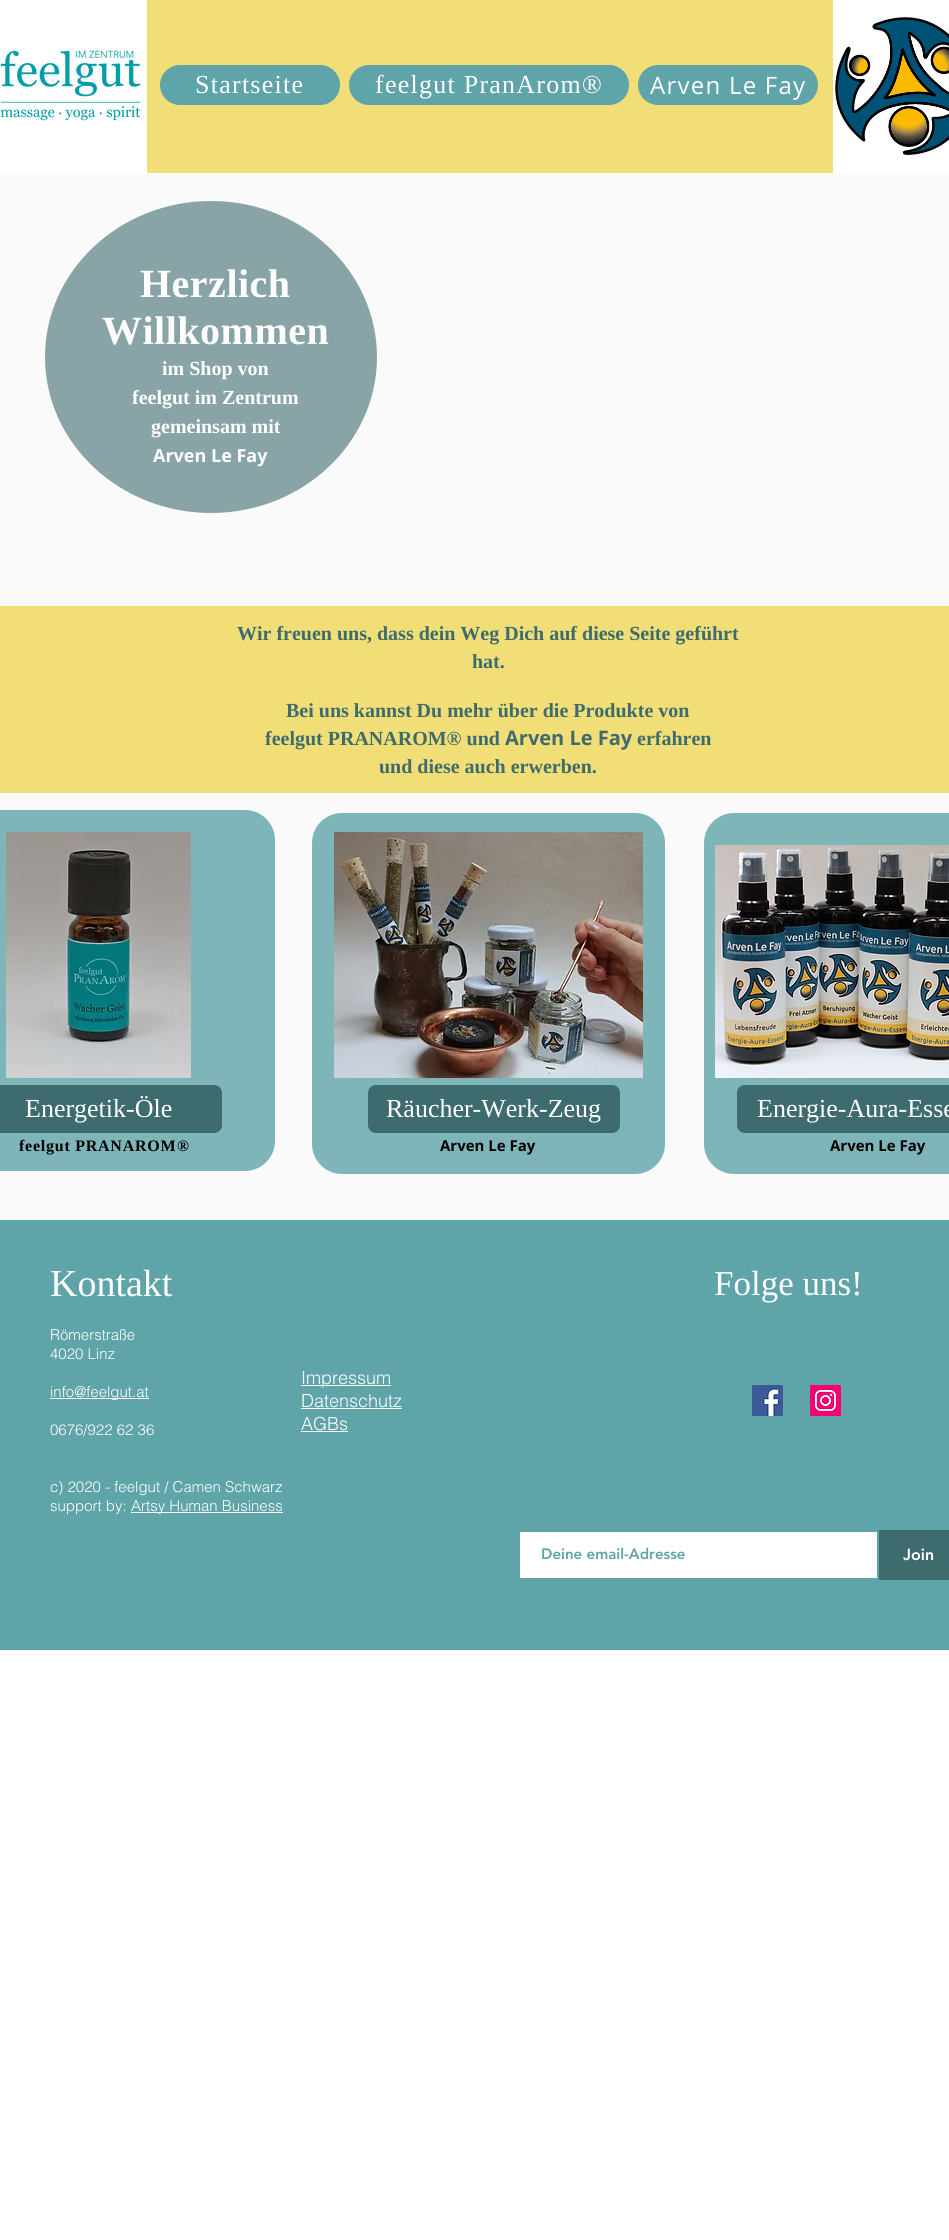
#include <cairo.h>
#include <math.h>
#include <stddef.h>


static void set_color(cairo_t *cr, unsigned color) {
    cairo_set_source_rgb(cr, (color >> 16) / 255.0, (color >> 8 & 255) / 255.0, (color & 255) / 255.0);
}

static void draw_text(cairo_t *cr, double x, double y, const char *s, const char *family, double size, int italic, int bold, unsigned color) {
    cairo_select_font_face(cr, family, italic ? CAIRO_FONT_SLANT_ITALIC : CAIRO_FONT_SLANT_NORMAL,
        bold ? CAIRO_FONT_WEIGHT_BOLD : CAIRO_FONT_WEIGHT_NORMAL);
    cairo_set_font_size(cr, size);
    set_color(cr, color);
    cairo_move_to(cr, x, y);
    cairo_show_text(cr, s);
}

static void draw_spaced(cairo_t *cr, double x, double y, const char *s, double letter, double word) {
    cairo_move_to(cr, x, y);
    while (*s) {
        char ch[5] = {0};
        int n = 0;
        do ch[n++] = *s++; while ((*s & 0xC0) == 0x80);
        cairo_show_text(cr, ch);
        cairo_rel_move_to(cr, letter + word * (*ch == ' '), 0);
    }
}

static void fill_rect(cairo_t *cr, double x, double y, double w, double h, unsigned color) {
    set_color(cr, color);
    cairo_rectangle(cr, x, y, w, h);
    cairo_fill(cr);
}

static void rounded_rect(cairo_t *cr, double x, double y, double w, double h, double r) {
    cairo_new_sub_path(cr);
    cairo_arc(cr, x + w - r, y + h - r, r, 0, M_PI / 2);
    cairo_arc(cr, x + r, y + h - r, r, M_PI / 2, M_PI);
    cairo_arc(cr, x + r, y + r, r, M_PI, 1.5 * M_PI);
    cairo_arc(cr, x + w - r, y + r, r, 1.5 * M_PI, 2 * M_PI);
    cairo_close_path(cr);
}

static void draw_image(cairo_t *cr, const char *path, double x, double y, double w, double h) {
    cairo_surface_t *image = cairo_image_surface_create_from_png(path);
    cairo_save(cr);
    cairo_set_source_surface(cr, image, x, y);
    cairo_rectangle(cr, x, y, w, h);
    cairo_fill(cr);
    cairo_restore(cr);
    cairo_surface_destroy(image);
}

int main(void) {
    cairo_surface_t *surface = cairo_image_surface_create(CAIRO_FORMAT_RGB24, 949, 2240);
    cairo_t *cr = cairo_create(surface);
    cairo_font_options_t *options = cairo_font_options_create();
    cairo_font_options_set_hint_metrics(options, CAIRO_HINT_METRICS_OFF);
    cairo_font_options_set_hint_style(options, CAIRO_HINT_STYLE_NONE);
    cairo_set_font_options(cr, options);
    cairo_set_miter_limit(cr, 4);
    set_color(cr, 0xFFFFFF);
    cairo_paint(cr);
    draw_image(cr, "assets/img1.png", 0, 50, 141, 71);
    fill_rect(cr, 147, 0, 686, 173, 0xF2DE77);
    set_color(cr, 0x5EA4A8);
    rounded_rect(cr, 160, 65, 180, 40, 20);
    cairo_fill(cr);
    cairo_select_font_face(cr, "Liberation Serif", CAIRO_FONT_SLANT_NORMAL, CAIRO_FONT_WEIGHT_NORMAL);
    cairo_set_font_size(cr, 26);
    set_color(cr, 0xFFFFFF);
    draw_spaced(cr, 195, 93, "Startseite", 1.25, 0);
    set_color(cr, 0x5EA4A8);
    rounded_rect(cr, 349, 65, 280, 40, 20);
    cairo_fill(cr);
    set_color(cr, 0xFFFFFF);
    draw_spaced(cr, 375, 93, "feelgut PranArom®", 1.25, 0);
    set_color(cr, 0x5EA4A8);
    rounded_rect(cr, 638, 65, 180, 40, 20);
    cairo_fill(cr);
    cairo_select_font_face(cr, "Open Sans", CAIRO_FONT_SLANT_NORMAL, CAIRO_FONT_WEIGHT_NORMAL);
    cairo_set_font_size(cr, 24);
    set_color(cr, 0xFFFFFF);
    draw_spaced(cr, 650, 94, "Arven Le Fay", 1.25, 0);
    draw_image(cr, "assets/img2.png", 835, 17, 114, 138);
    fill_rect(cr, 0, 173, 949, 432, 0xFAFAFA);
    set_color(cr, 0x89A4A6);
    cairo_new_path(cr);
    cairo_move_to(cr, 211, 201);
    cairo_curve_to(cr, 302.5, 201, 377, 271, 377, 357);
    cairo_curve_to(cr, 377, 443, 302.5, 513, 211, 513);
    cairo_curve_to(cr, 119.5, 513, 45, 443, 45, 357);
    cairo_curve_to(cr, 45, 271, 119.5, 201, 211, 201);
    cairo_close_path(cr);
    cairo_fill(cr);
    cairo_select_font_face(cr, "Liberation Serif", CAIRO_FONT_SLANT_NORMAL, CAIRO_FONT_WEIGHT_BOLD);
    cairo_set_font_size(cr, 40);
    set_color(cr, 0xFFFFFF);
    draw_spaced(cr, 140, 297, "Herzlich", 0.5, 0);
    draw_spaced(cr, 102, 344, "Willkommen", 0.5, 0);
    draw_text(cr, 162, 375, "im Shop von", "Liberation Serif", 20, 0, 1, 0xFFFFFF);
    draw_text(cr, 132, 404, "feelgut im Zentrum", "Liberation Serif", 20, 0, 1, 0xFFFFFF);
    draw_text(cr, 151, 433, "gemeinsam mit", "Liberation Serif", 20, 0, 1, 0xFFFFFF);
    draw_text(cr, 153, 462, "Arven Le Fay", "Open Sans", 18, 0, 1, 0xFFFFFF);
    fill_rect(cr, 0, 606, 949, 187, 0xF2DE77);
    draw_text(cr, 237, 640, "Wir freuen uns, dass dein Weg Dich auf diese Seite geführt", "Liberation Serif", 20, 0, 1, 0x3D6B6E);
    draw_text(cr, 472, 668, "hat.", "Liberation Serif", 20, 0, 1, 0x3D6B6E);
    draw_text(cr, 286, 717, "Bei uns kannst Du mehr über die Produkte von", "Liberation Serif", 20, 0, 1, 0x3D6B6E);
    draw_text(cr, 265, 745, "feelgut PRANAROM® und", "Liberation Serif", 20, 0, 1, 0x3D6B6E);
    draw_text(cr, 505, 745, "Arven Le Fay", "Open Sans", 20, 0, 1, 0x3D6B6E);
    draw_text(cr, 637, 745, "erfahren", "Liberation Serif", 20, 0, 1, 0x3D6B6E);
    draw_text(cr, 379, 773, "und diese auch erwerben.", "Liberation Serif", 20, 0, 1, 0x3D6B6E);
    fill_rect(cr, 0, 793, 949, 427, 0xFAFAFA);
    set_color(cr, 0x7DB5B8);
    cairo_new_path(cr);
    cairo_move_to(cr, 0, 810);
    cairo_line_to(cr, 245, 810);
    cairo_curve_to(cr, 261.5, 810, 275, 823.5, 275, 840);
    cairo_line_to(cr, 275, 1141);
    cairo_curve_to(cr, 275, 1157.5, 261.5, 1171, 245, 1171);
    cairo_line_to(cr, 0, 1171);
    cairo_close_path(cr);
    cairo_fill(cr);
    draw_image(cr, "assets/img3.png", 6, 832, 185, 246);
    set_color(cr, 0x3D6B6E);
    cairo_new_path(cr);
    cairo_move_to(cr, 0, 1085);
    cairo_line_to(cr, 214, 1085);
    cairo_curve_to(cr, 218.5, 1085, 222, 1088.5, 222, 1093);
    cairo_line_to(cr, 222, 1125);
    cairo_curve_to(cr, 222, 1129.5, 218.5, 1133, 214, 1133);
    cairo_line_to(cr, 0, 1133);
    cairo_close_path(cr);
    cairo_fill(cr);
    draw_text(cr, 25, 1117, "Energetik-Öle", "Liberation Serif", 26, 0, 0, 0xFFFFFF);
    cairo_select_font_face(cr, "Liberation Serif", CAIRO_FONT_SLANT_NORMAL, CAIRO_FONT_WEIGHT_BOLD);
    cairo_set_font_size(cr, 16);
    set_color(cr, 0x000000);
    draw_spaced(cr, 19, 1151, "feelgut PRANAROM", 0.75, 0);
    draw_text(cr, 177, 1151, "®", "Liberation Serif", 16, 0, 1, 0x000000);
    set_color(cr, 0x7DB5B8);
    rounded_rect(cr, 312, 813, 353, 361, 30);
    cairo_fill(cr);
    draw_image(cr, "assets/img4.png", 334, 832, 309, 246);
    set_color(cr, 0x3D6B6E);
    rounded_rect(cr, 368, 1085, 252, 48, 8);
    cairo_fill(cr);
    draw_text(cr, 386, 1117, "Räucher-Werk-Zeug", "Liberation Serif", 26, 0, 0, 0xFFFFFF);
    draw_text(cr, 440, 1151, "Arven Le Fay", "Open Sans", 15, 0, 1, 0x000000);
    set_color(cr, 0x7DB5B8);
    cairo_new_path(cr);
    cairo_move_to(cr, 734, 813);
    cairo_line_to(cr, 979, 813);
    cairo_line_to(cr, 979, 1174);
    cairo_line_to(cr, 734, 1174);
    cairo_curve_to(cr, 717.5, 1174, 704, 1160.5, 704, 1144);
    cairo_line_to(cr, 704, 843);
    cairo_curve_to(cr, 704, 826.5, 717.5, 813, 734, 813);
    cairo_close_path(cr);
    cairo_fill(cr);
    draw_image(cr, "assets/img5.png", 715, 845, 234, 233);
    set_color(cr, 0x3D6B6E);
    cairo_new_path(cr);
    cairo_move_to(cr, 745, 1085);
    cairo_line_to(cr, 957, 1085);
    cairo_line_to(cr, 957, 1133);
    cairo_line_to(cr, 745, 1133);
    cairo_curve_to(cr, 740.5, 1133, 737, 1129.5, 737, 1125);
    cairo_line_to(cr, 737, 1093);
    cairo_curve_to(cr, 737, 1088.5, 740.5, 1085, 745, 1085);
    cairo_close_path(cr);
    cairo_fill(cr);
    draw_text(cr, 757, 1117, "Energie-Aura-Esse", "Liberation Serif", 26, 0, 0, 0xFFFFFF);
    draw_text(cr, 830, 1151, "Arven Le Fay", "Open Sans", 15, 0, 1, 0x000000);
    fill_rect(cr, 0, 1220, 949, 430, 0x5EA4A8);
    draw_text(cr, 50, 1296, "Kontakt", "Liberation Serif", 38, 0, 0, 0xFFFFFF);
    draw_text(cr, 50, 1340, "Römerstraße", "helvetica Light", 15, 0, 0, 0xFFFFFF);
    draw_text(cr, 50, 1359, "4020 Linz", "helvetica Light", 15, 0, 0, 0xFFFFFF);
    fill_rect(cr, 50, 1398, 99, 1, 0xFFFFFF);
    draw_text(cr, 50, 1397, "info@feelgut.at", "helvetica Light", 15, 0, 0, 0xFFFFFF);
    draw_text(cr, 50, 1435, "0676/922 62 36", "helvetica Light", 15, 0, 0, 0xFFFFFF);
    draw_text(cr, 50, 1492, "c) 2020 - feelgut / Camen Schwarz", "helvetica Light", 15, 0, 0, 0xFFFFFF);
    draw_text(cr, 50, 1511, "support by:", "helvetica Light", 15, 0, 0, 0xFFFFFF);
    fill_rect(cr, 131, 1512, 152, 1, 0xFFFFFF);
    draw_text(cr, 131, 1511, "Artsy Human Business", "helvetica Light", 15, 0, 0, 0xFFFFFF);
    draw_text(cr, 714, 1295, "Folge uns!", "Liberation Serif", 35, 0, 0, 0xFFFFFF);
    fill_rect(cr, 301, 1385, 90, 1, 0xFFFFFF);
    draw_text(cr, 301, 1384, "Impressum", "helvetica Light", 18, 0, 0, 0xFFFFFF);
    draw_text(cr, 301, 1407, "Datenschutz", "helvetica Light", 18, 0, 0, 0xFFFFFF);
    fill_rect(cr, 301, 1408, 101, 1, 0xFFFFFF);
    draw_text(cr, 301, 1430, "AGBs", "helvetica Light", 18, 0, 0, 0xFFFFFF);
    fill_rect(cr, 301, 1431, 47, 1, 0xFFFFFF);
    draw_image(cr, "assets/img6.png", 752, 1385, 31, 31);
    draw_image(cr, "assets/img7.png", 810, 1385, 31, 31);
    fill_rect(cr, 520, 1532, 357, 46, 0xFFFFFF);
    draw_text(cr, 541, 1559, "Deine email-Adresse", "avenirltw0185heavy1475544 Black", 15, 0, 0, 0x5EA4A8);
    fill_rect(cr, 879, 1530, 70, 50, 0x3D6B6E);
    draw_text(cr, 903, 1560, "Join", "avenirltw0185heavy1475544 Black", 16, 0, 0, 0xFFFFFF);
    cairo_surface_write_to_png(surface, "output.png");
    cairo_font_options_destroy(options);
    cairo_destroy(cr);
    cairo_surface_destroy(surface);
    return 0;
}
